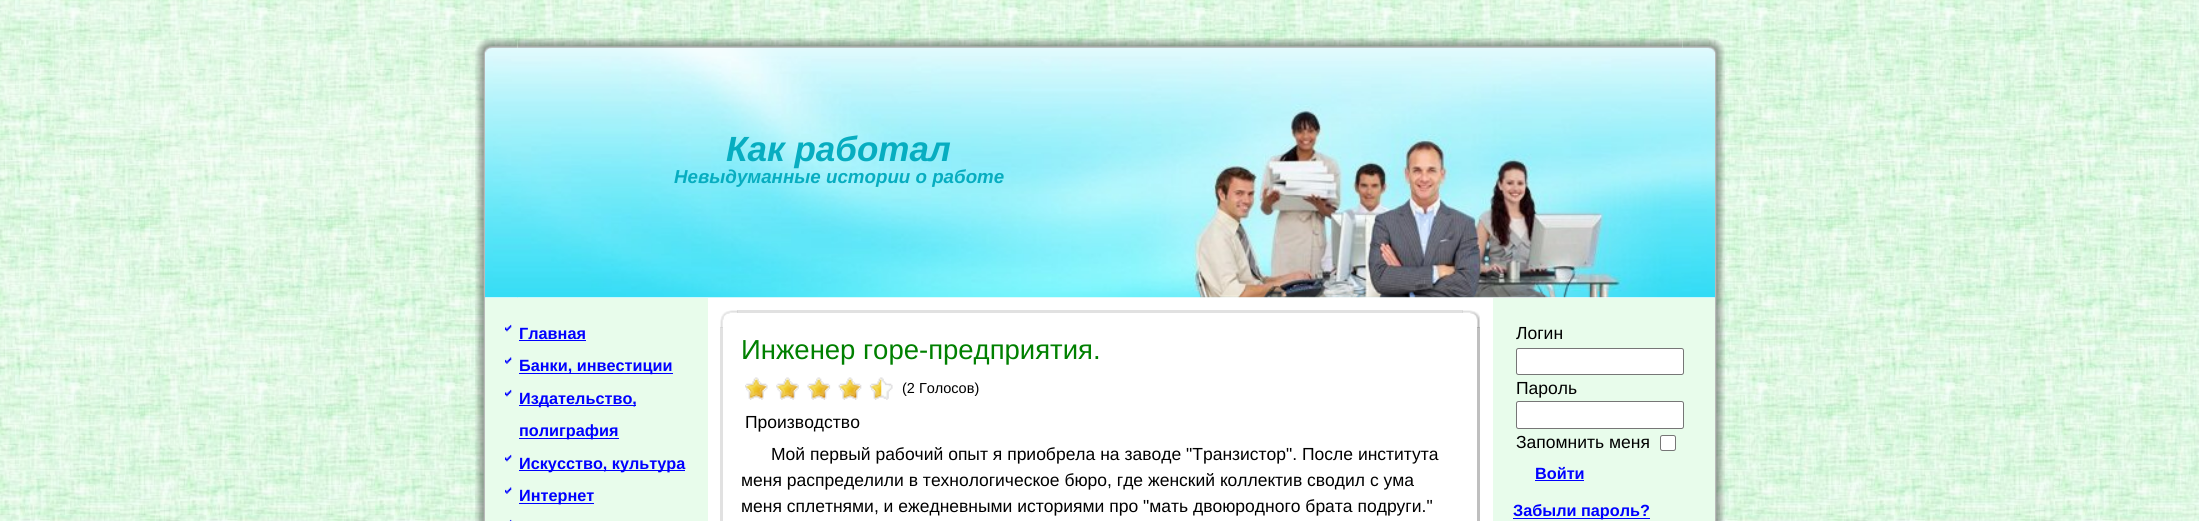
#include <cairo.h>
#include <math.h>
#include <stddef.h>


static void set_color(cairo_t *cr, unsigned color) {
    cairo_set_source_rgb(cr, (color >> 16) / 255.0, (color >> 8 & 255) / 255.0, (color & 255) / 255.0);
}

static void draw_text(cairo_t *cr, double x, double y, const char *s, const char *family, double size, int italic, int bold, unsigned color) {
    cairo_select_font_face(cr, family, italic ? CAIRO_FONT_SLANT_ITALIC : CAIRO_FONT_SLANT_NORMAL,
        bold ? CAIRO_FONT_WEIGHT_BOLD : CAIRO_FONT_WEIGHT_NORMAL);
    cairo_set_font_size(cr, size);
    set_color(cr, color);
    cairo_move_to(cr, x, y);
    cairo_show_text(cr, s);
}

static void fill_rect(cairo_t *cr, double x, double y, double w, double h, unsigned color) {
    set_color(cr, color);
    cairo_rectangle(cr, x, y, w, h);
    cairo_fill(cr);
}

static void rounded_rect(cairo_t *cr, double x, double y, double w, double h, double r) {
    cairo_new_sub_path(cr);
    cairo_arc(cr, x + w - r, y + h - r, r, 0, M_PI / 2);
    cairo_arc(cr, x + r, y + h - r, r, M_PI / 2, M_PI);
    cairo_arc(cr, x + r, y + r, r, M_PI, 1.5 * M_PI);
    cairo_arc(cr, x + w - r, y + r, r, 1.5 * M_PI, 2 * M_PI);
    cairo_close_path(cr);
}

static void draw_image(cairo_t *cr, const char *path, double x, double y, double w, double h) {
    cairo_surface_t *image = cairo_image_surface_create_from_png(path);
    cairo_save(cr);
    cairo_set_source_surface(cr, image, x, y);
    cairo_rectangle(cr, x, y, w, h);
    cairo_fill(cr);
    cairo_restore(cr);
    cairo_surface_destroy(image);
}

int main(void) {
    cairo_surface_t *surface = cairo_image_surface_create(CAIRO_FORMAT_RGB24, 2199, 521);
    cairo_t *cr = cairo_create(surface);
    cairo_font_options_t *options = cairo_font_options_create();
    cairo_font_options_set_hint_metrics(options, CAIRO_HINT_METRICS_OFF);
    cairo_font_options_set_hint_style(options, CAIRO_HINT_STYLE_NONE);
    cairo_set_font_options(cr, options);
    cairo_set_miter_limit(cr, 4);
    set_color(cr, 0xFFFFFF);
    cairo_paint(cr);
    draw_image(cr, "assets/img1.png", 0, 0, 2199, 521);
    draw_image(cr, "assets/img2.png", 1, 1, 547, 494);
    draw_image(cr, "assets/img3.png", 475, 38, 43, 42);
    draw_image(cr, "assets/img5.png", 1682, 38, 43, 42);
    draw_image(cr, "assets/img4.png", 517, 38, 1166, 10);
    draw_image(cr, "assets/img6.png", 475, 80, 43, 441);
    draw_image(cr, "assets/img16.png", 1683, 80, 42, 441);
    fill_rect(cr, 518, 297, 1165, 224, 0xFFFFFF);
    draw_image(cr, "assets/img7.png", 485, 47, 1230, 251);
    draw_image(cr, "assets/img8.png", 493, 56, 1214, 236);
    draw_text(cr, 726, 161, "Как работал", "Liberation Sans", 35, 1, 1, 0x07ADC0);
    draw_text(cr, 674, 183, "Невыдуманные истории о работе", "Liberation Sans", 18.75, 1, 1, 0x07ADC0);
    fill_rect(cr, 485, 298, 223, 223, 0xE8FCEB);
    draw_image(cr, "assets/img9.png", 505, 324, 7, 8);
    draw_text(cr, 519, 339, "Главная", "Liberation Sans", 16.25, 0, 1, 0x0000FF);
    fill_rect(cr, 519, 340, 67, 1, 0x0000FF);
    draw_image(cr, "assets/img10.png", 505, 357, 7, 7);
    fill_rect(cr, 519, 373, 154, 1, 0x0000FF);
    draw_text(cr, 519, 371, "Банки, инвестиции", "Liberation Sans", 16.25, 0, 1, 0x0000FF);
    draw_image(cr, "assets/img9.png", 505, 389, 7, 8);
    fill_rect(cr, 519, 405, 117, 1, 0x0000FF);
    draw_text(cr, 519, 404, "Издательство,", "Liberation Sans", 16.25, 0, 1, 0x0000FF);
    fill_rect(cr, 519, 438, 100, 1, 0x0000FF);
    draw_text(cr, 519, 436, "полиграфия", "Liberation Sans", 16.25, 0, 1, 0x0000FF);
    draw_image(cr, "assets/img9.png", 505, 454, 7, 8);
    fill_rect(cr, 519, 470, 166, 1, 0x0000FF);
    draw_text(cr, 519, 469, "Искусство, культура", "Liberation Sans", 16.25, 0, 1, 0x0000FF);
    draw_image(cr, "assets/img10.png", 505, 487, 7, 7);
    fill_rect(cr, 519, 503, 75, 1, 0x0000FF);
    draw_text(cr, 519, 501, "Интернет", "Liberation Sans", 16.25, 0, 1, 0x0000FF);
    draw_image(cr, "assets/img11.png", 509, 519, 3, 2);
    draw_image(cr, "assets/img12.png", 720, 310, 18, 18);
    draw_image(cr, "assets/img13.png", 1462, 310, 18, 18);
    cairo_set_source_rgba(cr, 0, 0, 0, 0.12);
    cairo_rectangle(cr, 737, 310, 726, 3);
    cairo_fill(cr);
    cairo_rectangle(cr, 720, 327, 3, 194);
    cairo_fill(cr);
    draw_text(cr, 741, 359, "Инженер горе-предприятия.", "Liberation Sans", 27.5, 0, 0, 0x008000);
    draw_image(cr, "assets/img14.png", 745, 377, 148, 23);
    draw_image(cr, "assets/img15.png", 746, 378, 136, 21);
    draw_text(cr, 902, 393, "(2 Голосов)", "Liberation Sans", 14.5, 0, 0, 0x000000);
    draw_text(cr, 745, 428, "Производство", "Liberation Sans", 17.5, 0, 0, 0x000000);
    draw_text(cr, 771, 460, "Мой первый рабочий опыт я приобрела на заводе \"Транзистор\". После института", "Liberation Sans", 17.5, 0, 0, 0x000000);
    draw_text(cr, 741, 486, "меня распределили в технологическое бюро, где женский коллектив сводил с ума", "Liberation Sans", 17.5, 0, 0, 0x000000);
    draw_text(cr, 741, 512, "меня сплетнями, и ежедневными историями про \"мать двоюродного брата подруги.\"", "Liberation Sans", 17.5, 0, 0, 0x000000);
    cairo_set_source_rgba(cr, 0, 0, 0, 0.25);
    cairo_rectangle(cr, 1477, 327, 3, 194);
    cairo_fill(cr);
    fill_rect(cr, 1493, 298, 222, 223, 0xE8FCEB);
    draw_text(cr, 1516, 339, "Логин", "Liberation Sans", 17.5, 0, 0, 0x000000);
    set_color(cr, 0xFFFFFF);
    rounded_rect(cr, 1516.5, 348.5, 167, 26, 2);
    cairo_fill_preserve(cr);
    set_color(cr, 0x767676);
    cairo_set_line_width(cr, 1);
    cairo_stroke(cr);
    draw_text(cr, 1516, 394, "Пароль", "Liberation Sans", 17.5, 0, 0, 0x000000);
    set_color(cr, 0xFFFFFF);
    rounded_rect(cr, 1516.5, 401.5, 167, 27, 2);
    cairo_fill_preserve(cr);
    set_color(cr, 0x767676);
    cairo_stroke(cr);
    draw_text(cr, 1516, 448, "Запомнить меня", "Liberation Sans", 17.5, 0, 0, 0x000000);
    set_color(cr, 0xFFFFFF);
    rounded_rect(cr, 1660.5, 435.5, 15, 15, 2);
    cairo_fill_preserve(cr);
    set_color(cr, 0x767676);
    cairo_stroke(cr);
    draw_text(cr, 1535, 479, "Войти", "Liberation Sans", 16.25, 0, 1, 0x0000FF);
    fill_rect(cr, 1535, 480, 49, 1, 0x0000FF);
    fill_rect(cr, 1513, 518, 137, 1, 0x0000FF);
    draw_text(cr, 1513, 516, "Забыли пароль?", "Liberation Sans", 16.25, 0, 1, 0x0000FF);
    cairo_surface_write_to_png(surface, "output.png");
    cairo_font_options_destroy(options);
    cairo_destroy(cr);
    cairo_surface_destroy(surface);
    return 0;
}
